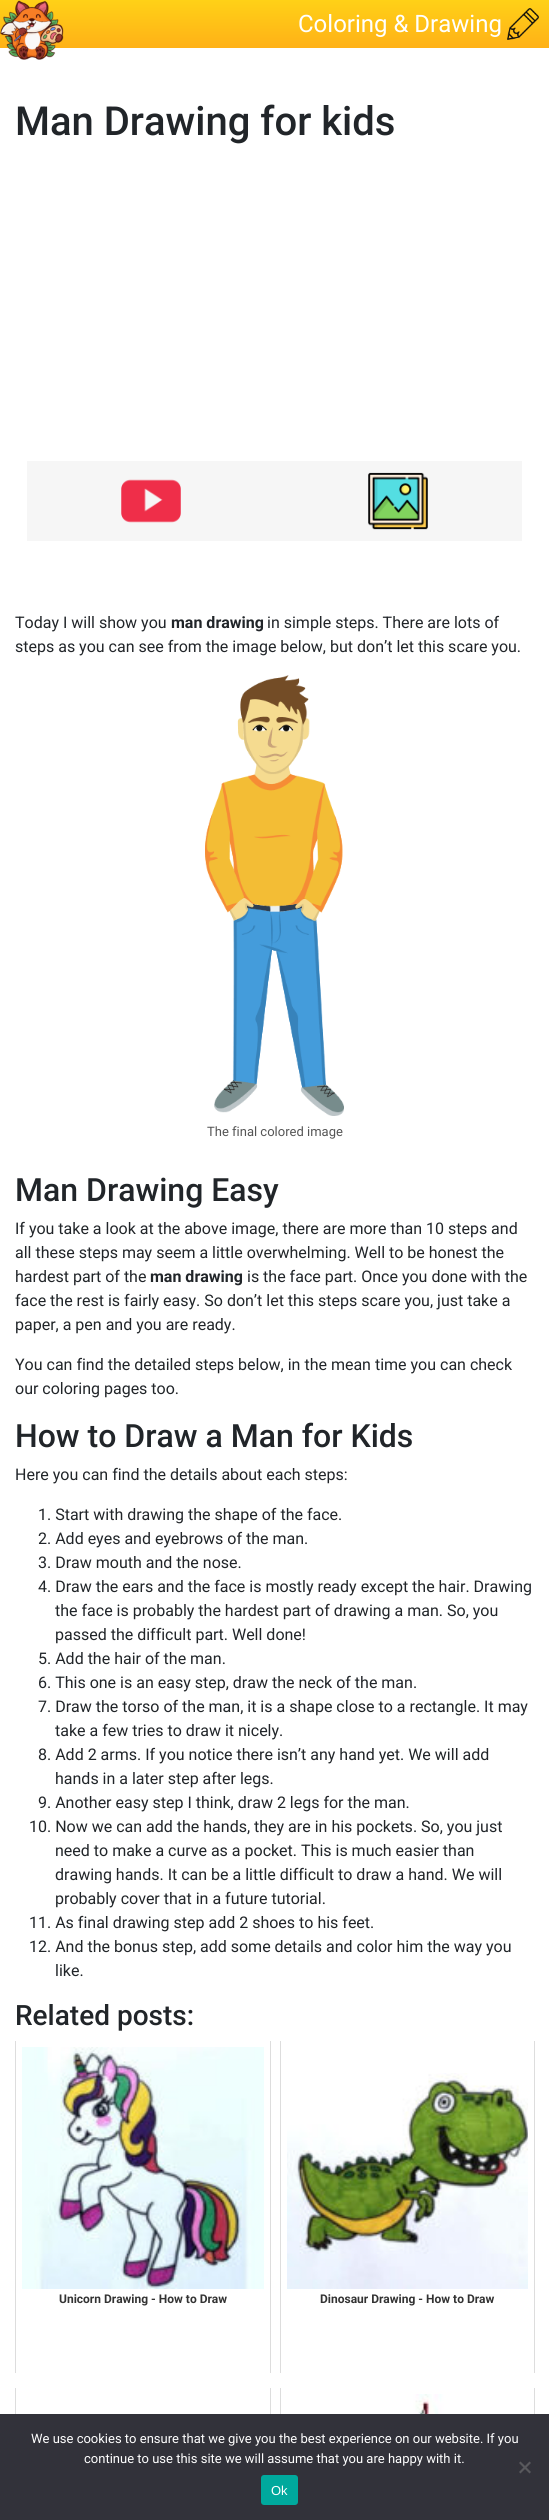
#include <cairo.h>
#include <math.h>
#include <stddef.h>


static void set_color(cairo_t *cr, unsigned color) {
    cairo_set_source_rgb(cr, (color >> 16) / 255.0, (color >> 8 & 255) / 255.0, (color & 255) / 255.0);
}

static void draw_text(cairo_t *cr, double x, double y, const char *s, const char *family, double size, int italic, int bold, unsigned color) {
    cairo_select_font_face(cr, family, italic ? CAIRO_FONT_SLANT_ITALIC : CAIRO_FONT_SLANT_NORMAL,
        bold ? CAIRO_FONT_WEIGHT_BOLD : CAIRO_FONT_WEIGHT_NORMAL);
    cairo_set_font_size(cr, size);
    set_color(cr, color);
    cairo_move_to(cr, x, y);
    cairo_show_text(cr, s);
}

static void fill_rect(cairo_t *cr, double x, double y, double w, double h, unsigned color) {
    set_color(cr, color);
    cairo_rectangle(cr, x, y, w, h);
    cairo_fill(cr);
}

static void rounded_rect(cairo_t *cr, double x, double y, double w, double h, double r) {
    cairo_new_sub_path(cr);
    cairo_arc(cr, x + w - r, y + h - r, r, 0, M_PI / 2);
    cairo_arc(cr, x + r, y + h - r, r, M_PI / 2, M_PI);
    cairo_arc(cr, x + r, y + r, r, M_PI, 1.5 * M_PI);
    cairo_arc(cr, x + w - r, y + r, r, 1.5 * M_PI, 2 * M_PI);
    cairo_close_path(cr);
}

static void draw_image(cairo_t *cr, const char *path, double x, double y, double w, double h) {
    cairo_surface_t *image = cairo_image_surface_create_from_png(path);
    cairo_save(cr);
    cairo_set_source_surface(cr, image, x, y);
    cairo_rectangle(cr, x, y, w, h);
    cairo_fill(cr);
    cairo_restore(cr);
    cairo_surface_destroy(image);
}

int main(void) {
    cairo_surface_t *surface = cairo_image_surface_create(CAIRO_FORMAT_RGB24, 549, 2520);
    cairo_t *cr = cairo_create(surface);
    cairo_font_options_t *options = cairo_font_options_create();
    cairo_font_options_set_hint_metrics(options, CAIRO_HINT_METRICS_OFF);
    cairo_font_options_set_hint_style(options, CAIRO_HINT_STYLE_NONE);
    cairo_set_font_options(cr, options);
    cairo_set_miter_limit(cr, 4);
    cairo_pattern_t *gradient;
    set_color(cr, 0xFFFFFF);
    cairo_paint(cr);
    gradient = cairo_pattern_create_linear(275, 48, 275, 0);
    cairo_pattern_add_color_stop_rgba(gradient, 0, 1, 0.694, 0.09, 1);
    cairo_pattern_add_color_stop_rgba(gradient, 1, 1, 0.82, 0.09, 1);
    cairo_set_source(cr, gradient);
    cairo_pattern_destroy(gradient);
    cairo_rectangle(cr, 0, 0, 549, 48);
    cairo_fill(cr);
    draw_image(cr, "assets/img1.png", 0, 0, 64, 60);
    draw_text(cr, 298, 32, "Coloring & Drawing", "Roboto", 24, 0, 0, 0xFFFFFF);
    draw_image(cr, "assets/img2.png", 507, 8, 32, 32);
    draw_text(cr, 15, 135, "Man Drawing for kids", "Roboto Medium", 40, 0, 0, 0x212529);
    fill_rect(cr, 27, 461, 495, 80, 0xF6F6F6);
    draw_image(cr, "assets/img3.png", 121, 479, 60, 44);
    draw_image(cr, "assets/img4.png", 368, 472, 60, 58);
    draw_text(cr, 15, 628, "Today I will show you", "Roboto", 16, 0, 0, 0x212529);
    draw_text(cr, 171, 628, "man drawing", "Roboto", 16, 0, 1, 0x212529);
    draw_text(cr, 267, 628, "in simple steps. There are lots of", "Roboto", 16, 0, 0, 0x212529);
    draw_text(cr, 15, 652, "steps as you can see from the image below, but don’t let this scare you.", "Roboto", 16, 0, 0, 0x212529);
    draw_image(cr, "assets/img5.png", 205, 675, 139, 441);
    draw_text(cr, 207, 1136, "The final colored image", "Roboto", 13, 0, 0, 0x555555);
    draw_text(cr, 15, 1201, "Man Drawing Easy", "Roboto Medium", 32, 0, 0, 0x212529);
    draw_text(cr, 15, 1234, "If you take a look at the above image, there are more than 10 steps and", "Roboto", 16, 0, 0, 0x212529);
    draw_text(cr, 15, 1258, "all these steps may seem a little overwhelming. Well to be honest the", "Roboto", 16, 0, 0, 0x212529);
    draw_text(cr, 15, 1282, "hardest part of the", "Roboto", 16, 0, 0, 0x212529);
    draw_text(cr, 150, 1282, "man drawing", "Roboto", 16, 0, 1, 0x212529);
    draw_text(cr, 247, 1282, "is the face part. Once you done with the", "Roboto", 16, 0, 0, 0x212529);
    draw_text(cr, 15, 1306, "face the rest is fairly easy. So don’t let this steps scare you, just take a", "Roboto", 16, 0, 0, 0x212529);
    draw_text(cr, 15, 1330, "paper, a pen and you are ready.", "Roboto", 16, 0, 0, 0x212529);
    draw_text(cr, 15, 1370, "You can find the detailed steps below, in the mean time you can check", "Roboto", 16, 0, 0, 0x212529);
    draw_text(cr, 15, 1394, "our coloring pages too.", "Roboto", 16, 0, 0, 0x212529);
    draw_text(cr, 15, 1447, "How to Draw a Man for Kids", "Roboto Medium", 32, 0, 0, 0x212529);
    draw_text(cr, 15, 1480, "Here you can find the details about each steps:", "Roboto", 16, 0, 0, 0x212529);
    draw_text(cr, 38, 1520, "1. Start with drawing the shape of the face.", "Roboto", 16, 0, 0, 0x212529);
    draw_text(cr, 38, 1544, "2. Add eyes and eyebrows of the man.", "Roboto", 16, 0, 0, 0x212529);
    draw_text(cr, 38, 1568, "3. Draw mouth and the nose.", "Roboto", 16, 0, 0, 0x212529);
    draw_text(cr, 38, 1592, "4. Draw the ears and the face is mostly ready except the hair. Drawing", "Roboto", 16, 0, 0, 0x212529);
    draw_text(cr, 55, 1616, "the face is probably the hardest part of drawing a man. So, you", "Roboto", 16, 0, 0, 0x212529);
    draw_text(cr, 55, 1640, "passed the difficult part. Well done!", "Roboto", 16, 0, 0, 0x212529);
    draw_text(cr, 38, 1664, "5. Add the hair of the man.", "Roboto", 16, 0, 0, 0x212529);
    draw_text(cr, 38, 1688, "6. This one is an easy step, draw the neck of the man.", "Roboto", 16, 0, 0, 0x212529);
    draw_text(cr, 38, 1712, "7. Draw the torso of the man, it is a shape close to a rectangle. It may", "Roboto", 16, 0, 0, 0x212529);
    draw_text(cr, 55, 1736, "take a few tries to draw it nicely.", "Roboto", 16, 0, 0, 0x212529);
    draw_text(cr, 38, 1760, "8. Add 2 arms. If you notice there isn’t any hand yet. We will add", "Roboto", 16, 0, 0, 0x212529);
    draw_text(cr, 55, 1784, "hands in a later step after legs.", "Roboto", 16, 0, 0, 0x212529);
    draw_text(cr, 38, 1808, "9. Another easy step I think, draw 2 legs for the man.", "Roboto", 16, 0, 0, 0x212529);
    draw_text(cr, 29, 1832, "10. Now we can add the hands, they are in his pockets. So, you just", "Roboto", 16, 0, 0, 0x212529);
    draw_text(cr, 55, 1856, "need to make a curve as a pocket. This is much easier than", "Roboto", 16, 0, 0, 0x212529);
    draw_text(cr, 55, 1880, "drawing hands. It can be a little difficult to draw a hand. We will", "Roboto", 16, 0, 0, 0x212529);
    draw_text(cr, 55, 1904, "probably cover that in a future tutorial.", "Roboto", 16, 0, 0, 0x212529);
    draw_text(cr, 29, 1928, "11. As final drawing step add 2 shoes to his feet.", "Roboto", 16, 0, 0, 0x212529);
    draw_text(cr, 29, 1952, "12. And the bonus step, add some details and color him the way you", "Roboto", 16, 0, 0, 0x212529);
    draw_text(cr, 55, 1976, "like.", "Roboto", 16, 0, 0, 0x212529);
    draw_text(cr, 15, 2025, "Related posts:", "Roboto Medium", 28, 0, 0, 0x212529);
    fill_rect(cr, 270, 2041, 1, 332, 0xDDDDDD);
    fill_rect(cr, 15, 2041, 1, 332, 0xDDDDDD);
    draw_image(cr, "assets/img6.png", 22, 2047, 242, 242);
    draw_text(cr, 59, 2303, "Unicorn Drawing - How to Draw", "Roboto", 12, 0, 1, 0x333333);
    fill_rect(cr, 534, 2041, 1, 332, 0xDDDDDD);
    fill_rect(cr, 280, 2041, 1, 332, 0xDDDDDD);
    draw_image(cr, "assets/img7.png", 287, 2073, 241, 216);
    draw_text(cr, 320, 2303, "Dinosaur Drawing - How to Draw", "Roboto", 12, 0, 1, 0x333333);
    fill_rect(cr, 270, 2388, 1, 26, 0xDDDDDD);
    fill_rect(cr, 15, 2388, 1, 26, 0xDDDDDD);
    fill_rect(cr, 534, 2388, 1, 26, 0xDDDDDD);
    fill_rect(cr, 280, 2388, 1, 26, 0xDDDDDD);
    draw_image(cr, "assets/img8.png", 364, 2394, 103, 20);
    fill_rect(cr, 0, 2414, 549, 106, 0x32323A);
    draw_text(cr, 31, 2443, "We use cookies to ensure that we give you the best experience on our website. If you", "Roboto", 13, 0, 0, 0xFFFFFF);
    draw_text(cr, 84, 2463, "continue to use this site we will assume that you are happy with it.", "Roboto", 13, 0, 0, 0xFFFFFF);
    set_color(cr, 0x59595D);
    cairo_new_path(cr);
    cairo_move_to(cr, 529.5, 2461.5);
    cairo_line_to(cr, 531, 2463);
    cairo_line_to(cr, 520.5, 2473.5);
    cairo_line_to(cr, 519, 2472);
    cairo_close_path(cr);
    cairo_fill(cr);
    cairo_new_path(cr);
    cairo_move_to(cr, 519, 2463);
    cairo_line_to(cr, 520.5, 2461.5);
    cairo_line_to(cr, 531, 2472);
    cairo_line_to(cr, 529.5, 2473.5);
    cairo_close_path(cr);
    cairo_fill(cr);
    set_color(cr, 0x00A99D);
    rounded_rect(cr, 261, 2475, 37, 30, 3);
    cairo_fill(cr);
    draw_text(cr, 271, 2495, "Ok", "Liberation Sans", 13, 0, 0, 0xFFFFFF);
    cairo_surface_write_to_png(surface, "output.png");
    cairo_font_options_destroy(options);
    cairo_destroy(cr);
    cairo_surface_destroy(surface);
    return 0;
}
